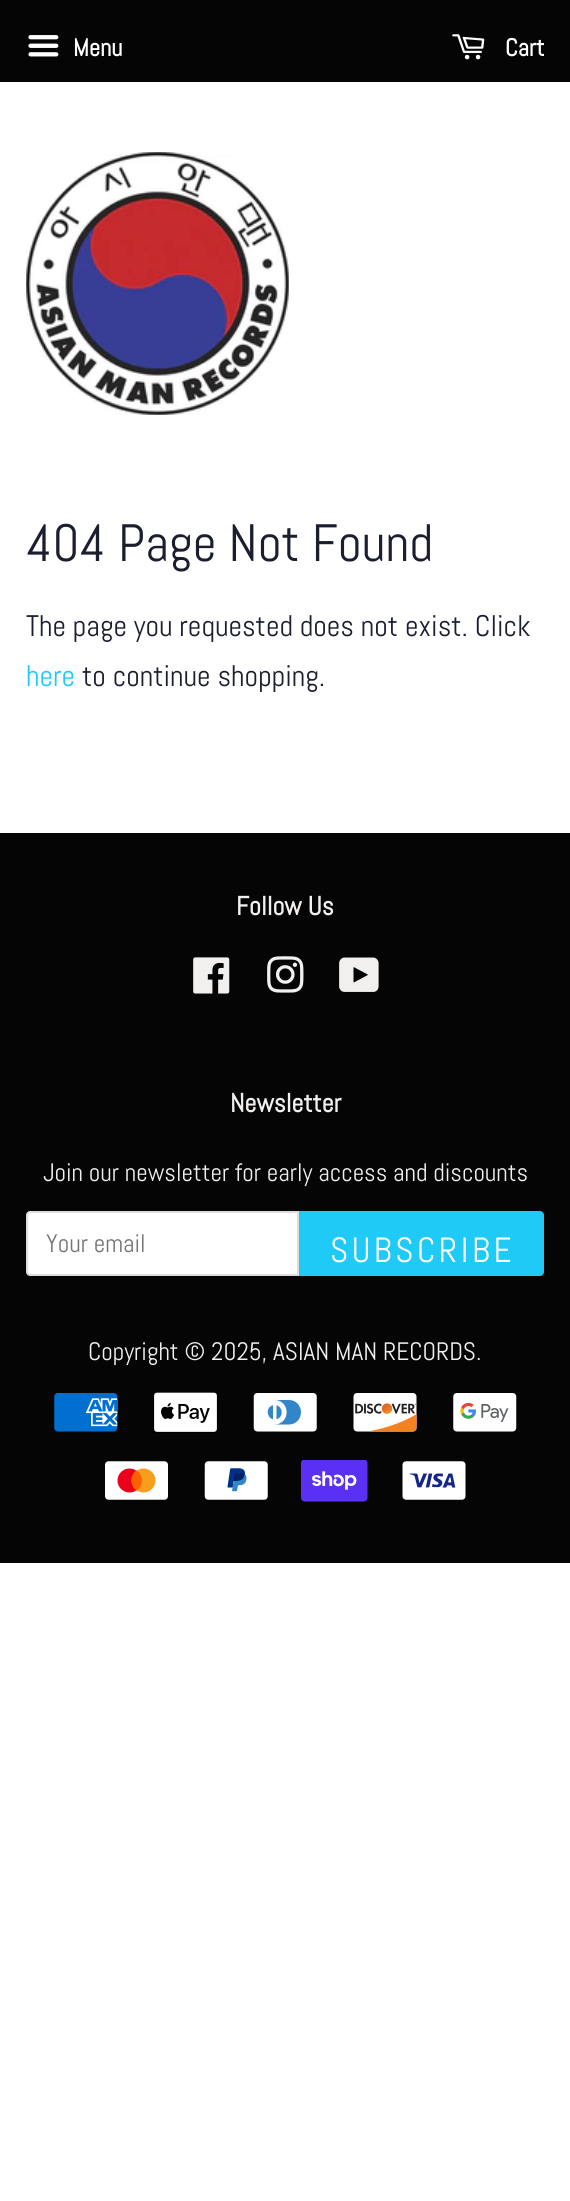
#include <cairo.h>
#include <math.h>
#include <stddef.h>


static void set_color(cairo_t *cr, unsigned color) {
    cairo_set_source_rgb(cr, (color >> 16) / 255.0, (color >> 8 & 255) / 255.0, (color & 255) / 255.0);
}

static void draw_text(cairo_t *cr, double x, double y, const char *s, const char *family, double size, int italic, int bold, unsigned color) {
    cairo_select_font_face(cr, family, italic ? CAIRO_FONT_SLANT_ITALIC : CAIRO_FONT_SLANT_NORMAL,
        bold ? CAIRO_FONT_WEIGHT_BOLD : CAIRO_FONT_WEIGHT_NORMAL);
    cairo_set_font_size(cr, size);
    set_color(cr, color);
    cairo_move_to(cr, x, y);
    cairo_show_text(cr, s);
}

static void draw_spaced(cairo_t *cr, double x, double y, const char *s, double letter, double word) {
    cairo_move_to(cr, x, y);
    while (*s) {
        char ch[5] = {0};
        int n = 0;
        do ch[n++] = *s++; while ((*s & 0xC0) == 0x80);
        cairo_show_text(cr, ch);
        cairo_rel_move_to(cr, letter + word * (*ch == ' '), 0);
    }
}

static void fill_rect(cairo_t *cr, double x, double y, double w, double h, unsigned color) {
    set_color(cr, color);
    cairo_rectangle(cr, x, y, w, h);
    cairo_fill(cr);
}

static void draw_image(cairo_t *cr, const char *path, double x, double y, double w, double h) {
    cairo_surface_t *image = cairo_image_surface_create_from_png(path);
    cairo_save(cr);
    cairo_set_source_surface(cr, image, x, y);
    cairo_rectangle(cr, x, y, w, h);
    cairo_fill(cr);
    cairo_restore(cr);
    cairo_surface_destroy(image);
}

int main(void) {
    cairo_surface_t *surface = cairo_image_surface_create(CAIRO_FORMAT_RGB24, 570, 2201);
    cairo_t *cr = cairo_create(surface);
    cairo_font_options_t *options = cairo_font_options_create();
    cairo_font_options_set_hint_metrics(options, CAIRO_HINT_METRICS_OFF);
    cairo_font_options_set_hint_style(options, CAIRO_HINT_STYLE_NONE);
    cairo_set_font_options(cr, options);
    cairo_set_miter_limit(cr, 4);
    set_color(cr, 0xFFFFFF);
    cairo_paint(cr);
    fill_rect(cr, 0, 0, 570, 82, 0x050505);
    draw_image(cr, "assets/img1.png", 28, 35, 31, 22);
    draw_text(cr, 73, 56, "Menu", "Abel", 24.5, 0, 1, 0xFFFFFF);
    draw_image(cr, "assets/img2.png", 452, 34, 33, 26);
    draw_text(cr, 505, 56, "Cart", "Abel", 24.5, 0, 1, 0xFFFFFF);
    draw_image(cr, "assets/img3.png", 26, 152, 263, 263);
    draw_text(cr, 26, 561, "404 Page Not Found", "Abel", 52.5, 0, 0, 0x1B1E2F);
    draw_text(cr, 26, 636, "The page you requested does not exist. Click", "Abel", 29.75, 0, 0, 0x1B1E2F);
    draw_text(cr, 26, 686, "here", "Abel", 29.75, 0, 0, 0x20CAF7);
    draw_text(cr, 82, 686, "to continue shopping.", "Abel", 29.75, 0, 0, 0x1B1E2F);
    fill_rect(cr, 0, 833, 570, 730, 0x050505);
    draw_text(cr, 236, 915, "Follow Us", "Abel", 26.25, 0, 1, 0xF2F0EE);
    draw_image(cr, "assets/img4.png", 193, 957, 37, 37);
    draw_image(cr, "assets/img5.png", 267, 956, 37, 37);
    draw_image(cr, "assets/img6.png", 339, 957, 40, 35);
    draw_text(cr, 230, 1112, "Newsletter", "Abel", 26.25, 0, 1, 0xF2F0EE);
    draw_text(cr, 43, 1181, "Join our newsletter for early access and discounts", "Abel", 25.25, 0, 0, 0xF2F0EE);
    set_color(cr, 0xFFFFFF);
    cairo_new_path(cr);
    cairo_move_to(cr, 30, 1211);
    cairo_line_to(cr, 299, 1211);
    cairo_line_to(cr, 299, 1276);
    cairo_line_to(cr, 30, 1276);
    cairo_curve_to(cr, 28, 1276, 26, 1274, 26, 1272);
    cairo_line_to(cr, 26, 1215);
    cairo_curve_to(cr, 26, 1213, 28, 1211, 30, 1211);
    cairo_close_path(cr);
    cairo_fill(cr);
    cairo_new_path(cr);
    cairo_move_to(cr, 30, 1212);
    cairo_line_to(cr, 298, 1212);
    cairo_line_to(cr, 298, 1275);
    cairo_line_to(cr, 30, 1275);
    cairo_curve_to(cr, 28.5, 1275, 27, 1273.5, 27, 1272);
    cairo_line_to(cr, 27, 1215);
    cairo_curve_to(cr, 27, 1213.5, 28.5, 1212, 30, 1212);
    cairo_close_path(cr);
    cairo_set_source_rgba(cr, 0.106, 0.118, 0.184, 0.15);
    cairo_stroke(cr);
    draw_text(cr, 46, 1252, "Your email", "Abel", 25.25, 0, 0, 0x757575);
    set_color(cr, 0x20CAF7);
    cairo_new_path(cr);
    cairo_move_to(cr, 299, 1211);
    cairo_line_to(cr, 540, 1211);
    cairo_curve_to(cr, 542, 1211, 544, 1213, 544, 1215);
    cairo_line_to(cr, 544, 1272);
    cairo_curve_to(cr, 544, 1274, 542, 1276, 540, 1276);
    cairo_line_to(cr, 299, 1276);
    cairo_close_path(cr);
    cairo_fill(cr);
    cairo_set_font_size(cr, 35);
    set_color(cr, 0xFFFFFF);
    draw_spaced(cr, 330, 1262, "SUBSCRIBE", 3.5, 0);
    draw_text(cr, 88, 1360, "Copyright © 2025, ASIAN MAN RECORDS.", "Abel", 25.25, 0, 0, 0xF2F0EE);
    draw_image(cr, "assets/img7.png", 54, 1393, 64, 39);
    draw_image(cr, "assets/img8.png", 153, 1392, 65, 41);
    draw_image(cr, "assets/img9.png", 253, 1393, 64, 39);
    draw_image(cr, "assets/img10.png", 353, 1393, 64, 39);
    draw_image(cr, "assets/img11.png", 453, 1393, 64, 39);
    draw_image(cr, "assets/img12.png", 105, 1461, 63, 39);
    draw_image(cr, "assets/img13.png", 204, 1461, 64, 39);
    draw_image(cr, "assets/img14.png", 301, 1460, 67, 42);
    draw_image(cr, "assets/img15.png", 402, 1461, 64, 39);
    cairo_surface_write_to_png(surface, "output.png");
    cairo_font_options_destroy(options);
    cairo_destroy(cr);
    cairo_surface_destroy(surface);
    return 0;
}
